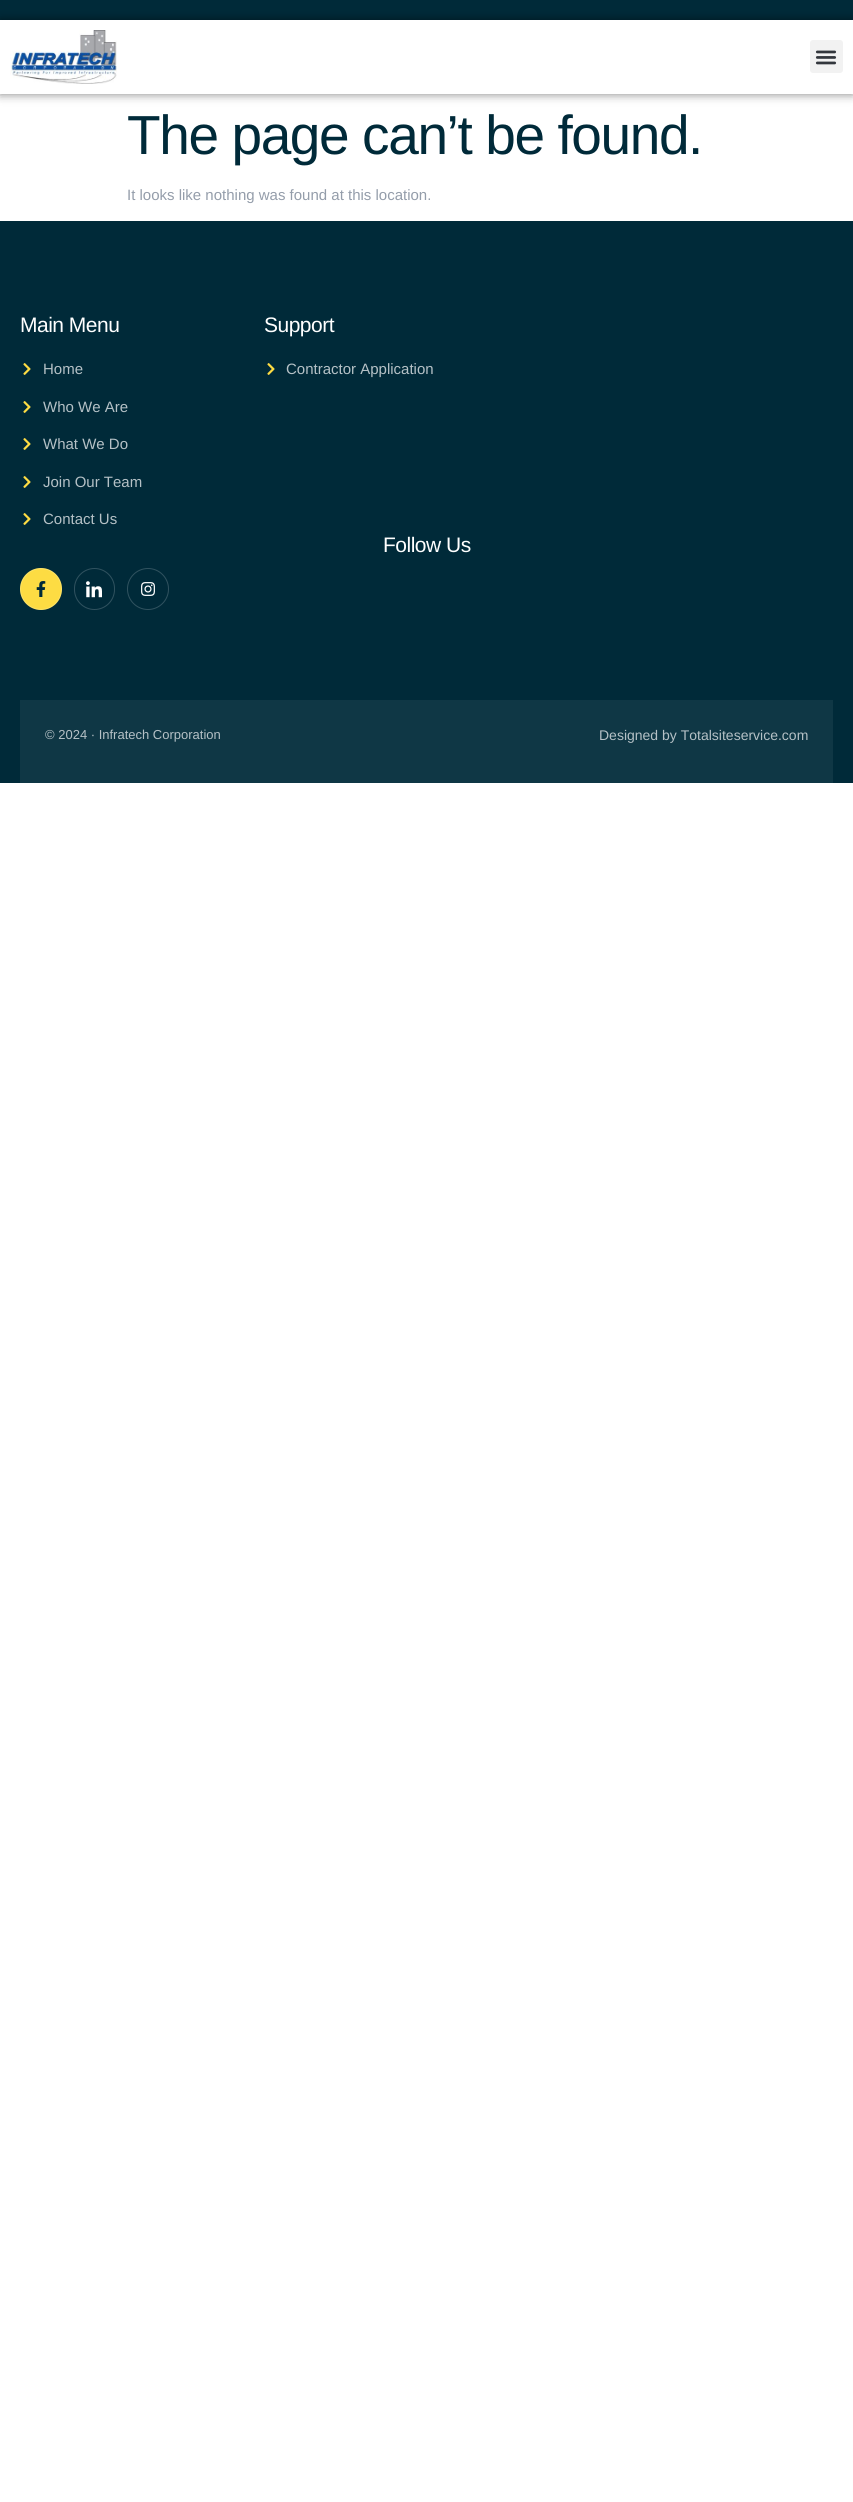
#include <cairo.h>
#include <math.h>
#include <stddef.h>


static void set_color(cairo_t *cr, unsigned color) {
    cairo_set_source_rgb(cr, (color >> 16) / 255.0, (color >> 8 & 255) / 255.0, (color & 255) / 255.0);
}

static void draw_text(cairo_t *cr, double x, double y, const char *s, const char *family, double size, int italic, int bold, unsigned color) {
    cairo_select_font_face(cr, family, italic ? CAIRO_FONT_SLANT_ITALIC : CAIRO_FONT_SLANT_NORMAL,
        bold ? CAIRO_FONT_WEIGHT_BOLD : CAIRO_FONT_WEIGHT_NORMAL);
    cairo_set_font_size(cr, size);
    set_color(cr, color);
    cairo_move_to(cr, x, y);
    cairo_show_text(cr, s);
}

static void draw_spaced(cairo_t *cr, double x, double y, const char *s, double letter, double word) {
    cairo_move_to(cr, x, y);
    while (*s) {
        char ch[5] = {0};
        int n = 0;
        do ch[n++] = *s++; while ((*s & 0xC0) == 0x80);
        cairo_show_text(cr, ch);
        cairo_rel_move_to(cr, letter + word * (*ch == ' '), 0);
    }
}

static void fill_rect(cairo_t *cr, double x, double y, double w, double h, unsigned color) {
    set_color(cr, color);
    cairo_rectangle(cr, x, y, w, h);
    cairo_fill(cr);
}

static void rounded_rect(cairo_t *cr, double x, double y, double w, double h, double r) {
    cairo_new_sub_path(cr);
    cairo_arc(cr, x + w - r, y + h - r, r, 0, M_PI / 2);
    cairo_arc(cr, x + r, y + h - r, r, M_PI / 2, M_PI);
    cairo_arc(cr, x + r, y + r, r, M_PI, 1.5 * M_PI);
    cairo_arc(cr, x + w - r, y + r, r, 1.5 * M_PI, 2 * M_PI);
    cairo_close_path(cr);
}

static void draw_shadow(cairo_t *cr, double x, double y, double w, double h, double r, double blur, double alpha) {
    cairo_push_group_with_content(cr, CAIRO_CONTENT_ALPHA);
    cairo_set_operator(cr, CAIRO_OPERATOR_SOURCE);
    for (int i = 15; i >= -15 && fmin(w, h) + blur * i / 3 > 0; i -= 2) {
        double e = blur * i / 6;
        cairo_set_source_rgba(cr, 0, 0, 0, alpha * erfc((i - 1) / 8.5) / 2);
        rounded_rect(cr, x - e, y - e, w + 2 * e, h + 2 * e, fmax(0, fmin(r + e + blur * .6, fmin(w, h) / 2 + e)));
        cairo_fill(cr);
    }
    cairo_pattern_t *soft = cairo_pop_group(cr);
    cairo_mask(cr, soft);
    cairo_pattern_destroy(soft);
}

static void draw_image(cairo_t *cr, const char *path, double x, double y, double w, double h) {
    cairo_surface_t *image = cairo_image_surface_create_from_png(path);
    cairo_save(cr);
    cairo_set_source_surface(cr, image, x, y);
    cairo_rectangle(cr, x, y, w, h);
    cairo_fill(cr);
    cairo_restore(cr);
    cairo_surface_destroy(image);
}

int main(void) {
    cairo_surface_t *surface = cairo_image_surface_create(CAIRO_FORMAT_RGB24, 853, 2502);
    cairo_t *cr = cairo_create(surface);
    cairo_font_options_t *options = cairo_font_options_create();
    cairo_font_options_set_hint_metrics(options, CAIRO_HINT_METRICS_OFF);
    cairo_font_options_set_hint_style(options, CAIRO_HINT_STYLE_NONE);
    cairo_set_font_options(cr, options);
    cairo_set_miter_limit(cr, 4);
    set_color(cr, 0xFFFFFF);
    cairo_paint(cr);
    fill_rect(cr, 0, 0, 853, 20, 0x002A39);
    cairo_save(cr);
    cairo_set_fill_rule(cr, CAIRO_FILL_RULE_EVEN_ODD);
    cairo_new_path(cr);
    cairo_move_to(cr, 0, 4);
    cairo_line_to(cr, 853, 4);
    cairo_line_to(cr, 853, 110);
    cairo_line_to(cr, 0, 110);
    cairo_close_path(cr);
    cairo_move_to(cr, 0, 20);
    cairo_line_to(cr, 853, 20);
    cairo_line_to(cr, 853, 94);
    cairo_line_to(cr, 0, 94);
    cairo_close_path(cr);
    cairo_clip(cr);
    set_color(cr, 0x000000);
    draw_shadow(cr, 0, 20, 853, 74, 0, 5, 0.5);
    cairo_restore(cr);
    draw_image(cr, "assets/img1.png", 10, 30, 107, 54);
    set_color(cr, 0xF2F2F2);
    rounded_rect(cr, 810, 40, 33, 33, 3);
    cairo_fill(cr);
    draw_image(cr, "assets/img2.png", 815, 50, 22, 15);
    cairo_select_font_face(cr, "Liberation Sans", CAIRO_FONT_SLANT_NORMAL, CAIRO_FONT_WEIGHT_NORMAL);
    cairo_set_font_size(cr, 55);
    set_color(cr, 0x002A39);
    draw_spaced(cr, 127, 154, "The page can’t be found.", -1.4, 0);
    draw_text(cr, 127, 200, "It looks like nothing was found at this location.", "Liberation Sans", 15, 0, 0, 0x949DAA);
    fill_rect(cr, 0, 221, 853, 562, 0x002A39);
    cairo_set_font_size(cr, 21);
    set_color(cr, 0xFFFFFF);
    draw_spaced(cr, 20, 332, "Main Menu", -0.5, 0);
    draw_image(cr, "assets/img3.png", 23, 363, 8, 12);
    draw_text(cr, 43, 374, "Home", "Liberation Sans", 15, 0, 0, 0xB5C1C6);
    draw_image(cr, "assets/img3.png", 23, 401, 8, 12);
    draw_text(cr, 43, 412, "Who We Are", "Liberation Sans", 15, 0, 0, 0xB5C1C6);
    draw_image(cr, "assets/img3.png", 23, 438, 8, 12);
    draw_text(cr, 43, 449, "What We Do", "Liberation Sans", 15, 0, 0, 0xB5C1C6);
    draw_image(cr, "assets/img3.png", 23, 476, 8, 12);
    draw_text(cr, 43, 487, "Join Our Team", "Liberation Sans", 15, 0, 0, 0xB5C1C6);
    draw_image(cr, "assets/img3.png", 23, 513, 8, 12);
    draw_text(cr, 43, 524, "Contact Us", "Liberation Sans", 15, 0, 0, 0xB5C1C6);
    cairo_set_font_size(cr, 21);
    set_color(cr, 0xFFFFFF);
    draw_spaced(cr, 264, 332, "Support", -0.5, 0);
    draw_image(cr, "assets/img3.png", 267, 363, 8, 12);
    draw_text(cr, 286, 374, "Contractor Application", "Liberation Sans", 15, 0, 0, 0xB5C1C6);
    cairo_set_font_size(cr, 21);
    set_color(cr, 0xFFFFFF);
    draw_spaced(cr, 383, 552, "Follow Us", -0.5, 0);
    set_color(cr, 0xFDDC43);
    cairo_new_path(cr);
    cairo_arc(cr, 41, 589, 21, 0, 2 * M_PI);
    cairo_fill(cr);
    cairo_arc(cr, 41, 589, 20.5, 0, 2 * M_PI);
    cairo_set_source_rgba(cr, 1, 1, 1, 0.19);
    cairo_set_line_width(cr, 1);
    cairo_stroke(cr);
    draw_image(cr, "assets/img4.png", 36, 581, 10, 16);
    rounded_rect(cr, 74.5, 568.5, 40, 41, 20);
    set_color(cr, 0x30525F);
    cairo_stroke(cr);
    draw_image(cr, "assets/img5.png", 86, 581, 16, 17);
    cairo_arc(cr, 148, 589, 20.5, 0, 2 * M_PI);
    cairo_stroke(cr);
    draw_image(cr, "assets/img6.png", 141, 582, 14, 14);
    fill_rect(cr, 20, 700, 813, 83, 0x0F3745);
    draw_text(cr, 45, 739, "© 2024 · Infratech Corporation", "Liberation Sans", 13, 0, 0, 0xB5C1C6);
    draw_text(cr, 599, 740, "Designed by Totalsiteservice.com", "Liberation Sans", 14, 0, 0, 0xB5C1C6);
    cairo_surface_write_to_png(surface, "output.png");
    cairo_font_options_destroy(options);
    cairo_destroy(cr);
    cairo_surface_destroy(surface);
    return 0;
}
